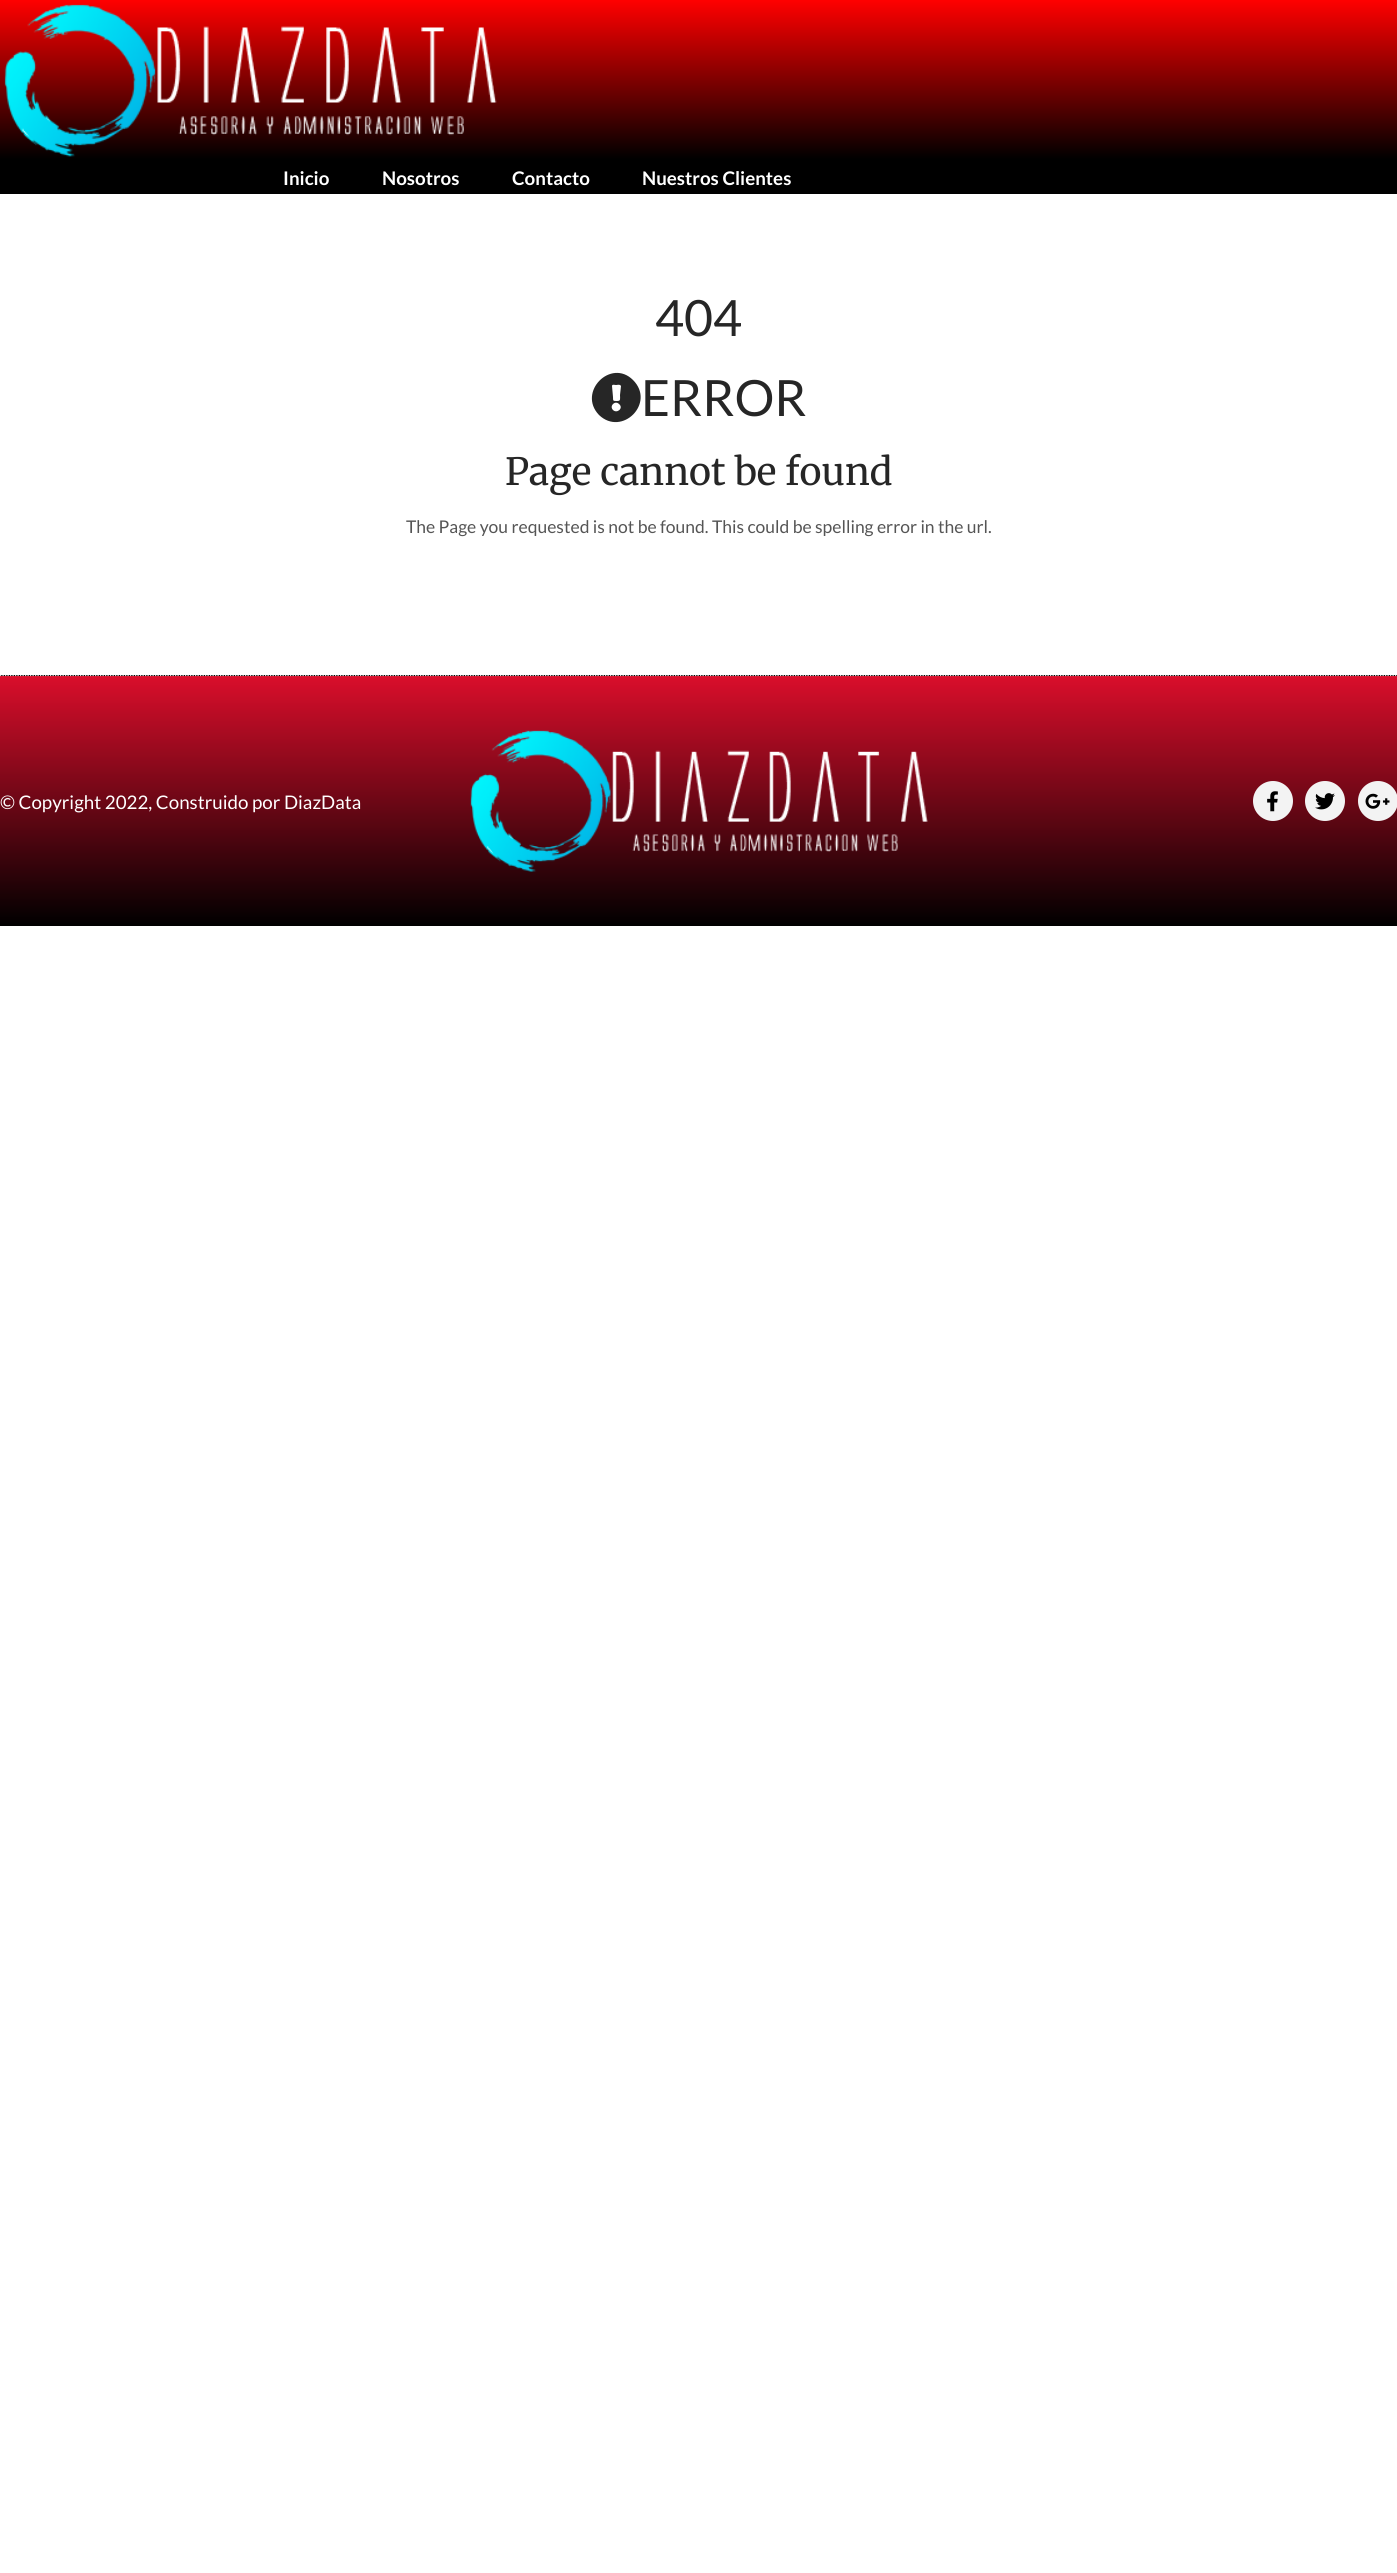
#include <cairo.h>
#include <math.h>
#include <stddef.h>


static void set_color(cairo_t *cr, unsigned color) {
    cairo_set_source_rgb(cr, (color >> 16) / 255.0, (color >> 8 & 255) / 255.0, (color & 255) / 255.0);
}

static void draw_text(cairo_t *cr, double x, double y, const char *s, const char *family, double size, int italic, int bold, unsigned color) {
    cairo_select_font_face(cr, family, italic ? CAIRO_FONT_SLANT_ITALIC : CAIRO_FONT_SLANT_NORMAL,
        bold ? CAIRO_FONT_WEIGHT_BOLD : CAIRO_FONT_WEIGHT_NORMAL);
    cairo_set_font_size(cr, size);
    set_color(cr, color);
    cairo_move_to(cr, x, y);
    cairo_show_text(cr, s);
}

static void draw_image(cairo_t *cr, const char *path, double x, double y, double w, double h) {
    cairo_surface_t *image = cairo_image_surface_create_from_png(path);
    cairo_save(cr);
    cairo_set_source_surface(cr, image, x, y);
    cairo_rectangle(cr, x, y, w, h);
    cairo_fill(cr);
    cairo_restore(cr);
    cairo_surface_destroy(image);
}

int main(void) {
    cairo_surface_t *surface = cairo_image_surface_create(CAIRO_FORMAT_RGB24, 1397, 2573);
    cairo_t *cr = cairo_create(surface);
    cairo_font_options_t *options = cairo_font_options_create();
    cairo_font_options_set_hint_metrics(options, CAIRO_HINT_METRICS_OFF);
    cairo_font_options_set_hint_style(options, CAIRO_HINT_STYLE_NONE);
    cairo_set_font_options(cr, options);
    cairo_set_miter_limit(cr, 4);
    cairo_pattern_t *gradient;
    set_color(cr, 0xFFFFFF);
    cairo_paint(cr);
    gradient = cairo_pattern_create_linear(699, 0, 699, 194);
    cairo_pattern_add_color_stop_rgba(gradient, 0, 1, 0, 0, 1);
    cairo_pattern_add_color_stop_rgba(gradient, 0.82, 0, 0, 0, 1);
    cairo_set_source(cr, gradient);
    cairo_pattern_destroy(gradient);
    cairo_rectangle(cr, 0, 0, 1397, 194);
    cairo_fill(cr);
    draw_image(cr, "assets/img1.png", 4, 4, 493, 153);
    draw_text(cr, 283, 185, "Inicio", "Lato", 18.75, 0, 1, 0xFFFFFF);
    draw_text(cr, 382, 185, "Nosotros", "Lato", 18.75, 0, 1, 0xFFFFFF);
    draw_text(cr, 512, 185, "Contacto", "Lato", 18.75, 0, 1, 0xFFFFFF);
    draw_text(cr, 642, 185, "Nuestros Clientes", "Lato", 18.75, 0, 1, 0xFFFFFF);
    draw_text(cr, 655, 336, "404", "Lato", 50, 0, 0, 0x262626);
    cairo_new_path(cr);
    cairo_move_to(cr, 633, 380);
    cairo_curve_to(cr, 656, 403, 622, 437, 599, 415);
    cairo_curve_to(cr, 577, 392, 611, 358, 633, 380);
    cairo_close_path(cr);
    cairo_move_to(cr, 619, 404);
    cairo_curve_to(cr, 615, 400, 609, 406, 613, 410);
    cairo_curve_to(cr, 617, 414, 624, 408, 619, 404);
    cairo_close_path(cr);
    cairo_move_to(cr, 612, 386);
    cairo_line_to(cr, 613, 397);
    cairo_curve_to(cr, 613, 401, 613, 401, 617, 401);
    cairo_curve_to(cr, 621, 401, 620, 399, 620, 395);
    cairo_line_to(cr, 621, 386);
    cairo_curve_to(cr, 620, 384, 617, 385, 616, 385);
    cairo_curve_to(cr, 615, 385, 612, 384, 612, 386);
    cairo_close_path(cr);
    cairo_fill(cr);
    draw_text(cr, 641, 416, "ERROR", "Lato", 50, 0, 0, 0x262626);
    draw_text(cr, 505, 485, "Page cannot be found", "Merriweather", 37.5, 0, 0, 0x262626);
    draw_text(cr, 406, 533, "The Page you requested is not be found. This could be spelling error in the url.", "Lato", 17.5, 0, 0, 0x555555);
    gradient = cairo_pattern_create_linear(699, 426, 699, 676);
    cairo_pattern_add_color_stop_rgba(gradient, 0, 0.855, 0.055, 0.169, 1);
    cairo_pattern_add_color_stop_rgba(gradient, 1, 0, 0, 0, 1);
    cairo_set_source(cr, gradient);
    cairo_pattern_destroy(gradient);
    cairo_rectangle(cr, 0, 675, 1397, 1);
    cairo_fill(cr);
    gradient = cairo_pattern_create_linear(699, 676, 699, 926);
    cairo_pattern_add_color_stop_rgba(gradient, 0, 0.855, 0.055, 0.169, 1);
    cairo_pattern_add_color_stop_rgba(gradient, 1, 0, 0, 0, 1);
    cairo_set_source(cr, gradient);
    cairo_pattern_destroy(gradient);
    cairo_rectangle(cr, 0, 676, 1397, 250);
    cairo_fill(cr);
    cairo_new_path(cr);
    cairo_move_to(cr, 0, 675.5);
    cairo_line_to(cr, 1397.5, 675.5);
    set_color(cr, 0xD6D6D6);
    cairo_set_line_width(cr, 1.2);
    cairo_set_dash(cr, (double[]){1.25, 1.25}, 2, 0);
    cairo_stroke(cr);
    draw_text(cr, 0, 809, "© Copyright 2022, Construido por DiazData", "Lato", 18.75, 0, 0, 0xFFFFFF);
    draw_image(cr, "assets/img2.png", 470, 730, 458, 142);
    set_color(cr, 0xF3F3F3);
    cairo_arc(cr, 1273, 801, 20, 0, 2 * M_PI);
    cairo_fill(cr);
    draw_image(cr, "assets/img3.png", 1267, 791, 11, 21);
    cairo_arc(cr, 1325, 801, 20, 0, 2 * M_PI);
    cairo_fill(cr);
    draw_image(cr, "assets/img4.png", 1315, 793, 20, 17);
    cairo_arc(cr, 1378, 801, 20, 0, 2 * M_PI);
    cairo_fill(cr);
    draw_image(cr, "assets/img5.png", 1365, 793, 25, 16);
    cairo_surface_write_to_png(surface, "output.png");
    cairo_font_options_destroy(options);
    cairo_destroy(cr);
    cairo_surface_destroy(surface);
    return 0;
}
